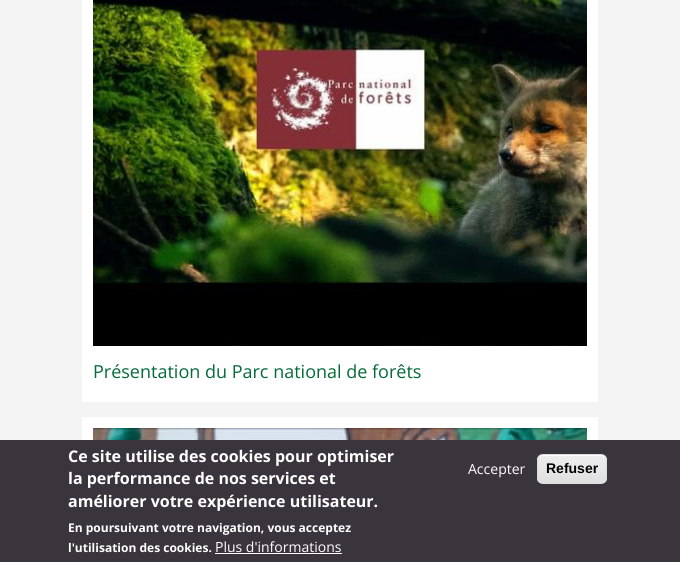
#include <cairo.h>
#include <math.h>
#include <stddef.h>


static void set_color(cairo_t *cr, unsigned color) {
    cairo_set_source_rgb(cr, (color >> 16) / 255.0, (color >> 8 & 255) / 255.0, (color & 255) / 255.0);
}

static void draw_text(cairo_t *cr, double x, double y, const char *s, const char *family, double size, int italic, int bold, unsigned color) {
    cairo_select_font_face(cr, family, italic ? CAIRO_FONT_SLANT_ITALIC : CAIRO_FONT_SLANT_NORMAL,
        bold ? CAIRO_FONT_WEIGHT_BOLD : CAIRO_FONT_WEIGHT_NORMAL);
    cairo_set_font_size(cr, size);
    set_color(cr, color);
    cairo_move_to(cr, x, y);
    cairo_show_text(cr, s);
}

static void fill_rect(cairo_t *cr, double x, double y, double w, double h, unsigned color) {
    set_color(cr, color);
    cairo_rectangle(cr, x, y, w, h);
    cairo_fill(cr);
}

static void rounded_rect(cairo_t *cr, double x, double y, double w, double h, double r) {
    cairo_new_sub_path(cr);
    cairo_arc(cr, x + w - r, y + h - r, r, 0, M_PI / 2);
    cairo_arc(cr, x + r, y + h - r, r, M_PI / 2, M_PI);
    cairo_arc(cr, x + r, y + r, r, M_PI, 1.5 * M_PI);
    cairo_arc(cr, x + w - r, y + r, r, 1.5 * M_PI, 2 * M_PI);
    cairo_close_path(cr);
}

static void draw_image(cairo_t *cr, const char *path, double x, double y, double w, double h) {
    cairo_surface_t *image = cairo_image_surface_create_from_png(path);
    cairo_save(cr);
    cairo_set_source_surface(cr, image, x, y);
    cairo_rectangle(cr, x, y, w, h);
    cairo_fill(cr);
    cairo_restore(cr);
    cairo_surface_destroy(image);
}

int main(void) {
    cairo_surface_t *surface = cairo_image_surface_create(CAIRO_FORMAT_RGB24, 680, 562);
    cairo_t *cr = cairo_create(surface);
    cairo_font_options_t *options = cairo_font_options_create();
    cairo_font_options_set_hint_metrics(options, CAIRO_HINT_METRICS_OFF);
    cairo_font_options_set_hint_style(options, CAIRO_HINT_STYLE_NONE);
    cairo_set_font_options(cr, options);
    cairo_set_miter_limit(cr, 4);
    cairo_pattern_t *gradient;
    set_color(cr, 0xF4F4F4);
    cairo_paint(cr);
    fill_rect(cr, 82, 0, 516, 402, 0xFFFFFF);
    draw_image(cr, "assets/img1.png", 93, 0, 494, 346);
    draw_text(cr, 93, 378, "Présentation du Parc national de forêts", "Open Sans", 18, 0, 0, 0x046A38);
    fill_rect(cr, 82, 417, 516, 23, 0xFFFFFF);
    draw_image(cr, "assets/img2.png", 93, 428, 494, 12);
    fill_rect(cr, 0, 440, 680, 122, 0x3A353C);
    draw_text(cr, 68, 462, "Ce site utilise des cookies pour optimiser", "Open Sans", 16, 0, 1, 0xFFFFFF);
    draw_text(cr, 68, 484, "la performance de nos services et", "Open Sans", 16, 0, 1, 0xFFFFFF);
    draw_text(cr, 68, 507, "améliorer votre expérience utilisateur.", "Open Sans", 16, 0, 1, 0xFFFFFF);
    draw_text(cr, 68, 532, "En poursuivant votre navigation, vous acceptez", "Open Sans", 12, 0, 1, 0xFFFFFF);
    draw_text(cr, 68, 552, "l'utilisation des cookies.", "Open Sans", 12, 0, 1, 0xFFFFFF);
    draw_text(cr, 215, 552, "Plus d'informations", "Open Sans", 14, 0, 0, 0xFFFFFF);
    fill_rect(cr, 215, 553, 127, 1, 0xFFFFFF);
    draw_text(cr, 468, 474, "Accepter", "Open Sans", 14, 0, 0, 0xFFFFFF);
    cairo_save(cr);
    rounded_rect(cr, 537, 454, 70, 30, 6);
    cairo_clip(cr);
    gradient = cairo_pattern_create_linear(572, 455, 572, 483);
    cairo_pattern_add_color_stop_rgba(gradient, 0.05, 0.929, 0.929, 0.929, 1);
    cairo_pattern_add_color_stop_rgba(gradient, 1, 0.875, 0.875, 0.875, 1);
    cairo_set_source(cr, gradient);
    cairo_pattern_destroy(gradient);
    cairo_rectangle(cr, 537, 455, 70, 28);
    cairo_fill(cr);
    cairo_restore(cr);
    cairo_new_path(cr);
    cairo_move_to(cr, 543, 456);
    cairo_line_to(cr, 601, 456);
    cairo_curve_to(cr, 604, 456, 606, 458, 606, 461);
    cairo_curve_to(cr, 606, 453, 597, 455, 591, 455);
    cairo_line_to(cr, 553, 455);
    cairo_curve_to(cr, 547, 455, 538, 453, 538, 461);
    cairo_curve_to(cr, 538, 458, 540, 456, 543, 456);
    cairo_close_path(cr);
    cairo_fill(cr);
    rounded_rect(cr, 537.5, 454.5, 69, 29, 5.5);
    set_color(cr, 0xDCDCDC);
    cairo_set_line_width(cr, 1);
    cairo_stroke(cr);
    draw_text(cr, 546, 473, "Refuser", "Liberation Sans", 14, 0, 1, 0x000000);
    cairo_surface_write_to_png(surface, "output.png");
    cairo_font_options_destroy(options);
    cairo_destroy(cr);
    cairo_surface_destroy(surface);
    return 0;
}
